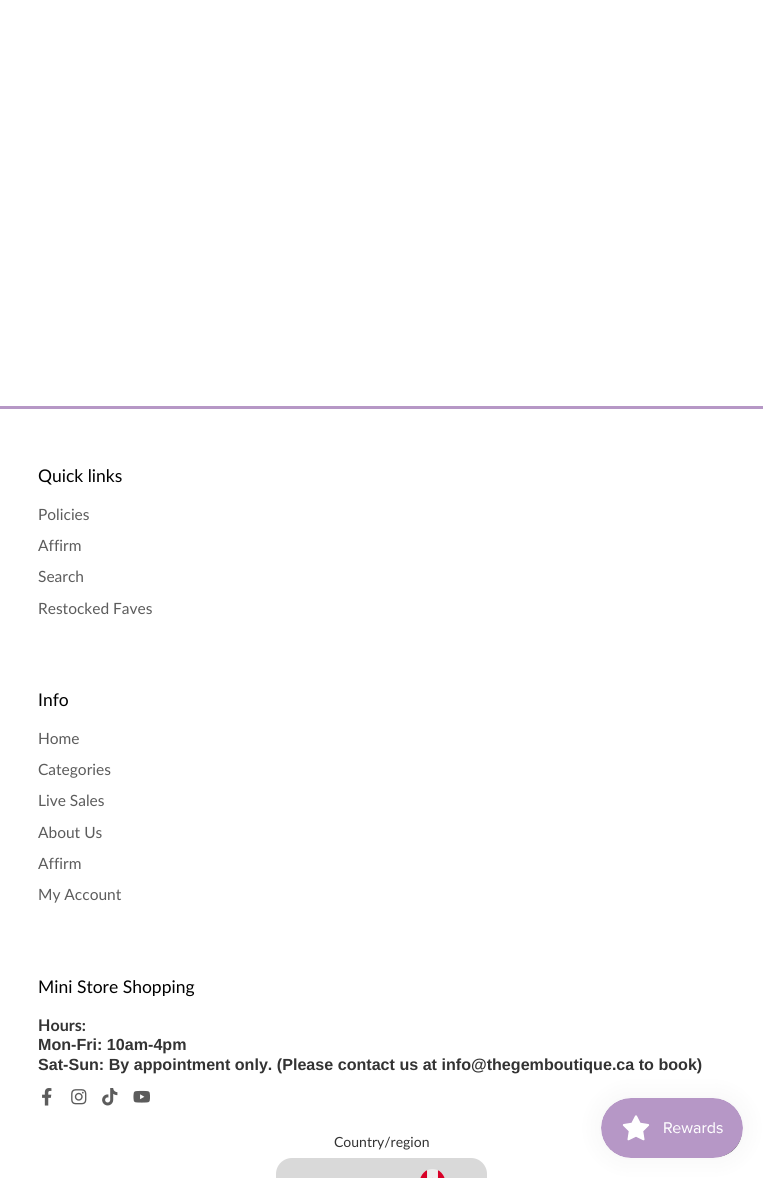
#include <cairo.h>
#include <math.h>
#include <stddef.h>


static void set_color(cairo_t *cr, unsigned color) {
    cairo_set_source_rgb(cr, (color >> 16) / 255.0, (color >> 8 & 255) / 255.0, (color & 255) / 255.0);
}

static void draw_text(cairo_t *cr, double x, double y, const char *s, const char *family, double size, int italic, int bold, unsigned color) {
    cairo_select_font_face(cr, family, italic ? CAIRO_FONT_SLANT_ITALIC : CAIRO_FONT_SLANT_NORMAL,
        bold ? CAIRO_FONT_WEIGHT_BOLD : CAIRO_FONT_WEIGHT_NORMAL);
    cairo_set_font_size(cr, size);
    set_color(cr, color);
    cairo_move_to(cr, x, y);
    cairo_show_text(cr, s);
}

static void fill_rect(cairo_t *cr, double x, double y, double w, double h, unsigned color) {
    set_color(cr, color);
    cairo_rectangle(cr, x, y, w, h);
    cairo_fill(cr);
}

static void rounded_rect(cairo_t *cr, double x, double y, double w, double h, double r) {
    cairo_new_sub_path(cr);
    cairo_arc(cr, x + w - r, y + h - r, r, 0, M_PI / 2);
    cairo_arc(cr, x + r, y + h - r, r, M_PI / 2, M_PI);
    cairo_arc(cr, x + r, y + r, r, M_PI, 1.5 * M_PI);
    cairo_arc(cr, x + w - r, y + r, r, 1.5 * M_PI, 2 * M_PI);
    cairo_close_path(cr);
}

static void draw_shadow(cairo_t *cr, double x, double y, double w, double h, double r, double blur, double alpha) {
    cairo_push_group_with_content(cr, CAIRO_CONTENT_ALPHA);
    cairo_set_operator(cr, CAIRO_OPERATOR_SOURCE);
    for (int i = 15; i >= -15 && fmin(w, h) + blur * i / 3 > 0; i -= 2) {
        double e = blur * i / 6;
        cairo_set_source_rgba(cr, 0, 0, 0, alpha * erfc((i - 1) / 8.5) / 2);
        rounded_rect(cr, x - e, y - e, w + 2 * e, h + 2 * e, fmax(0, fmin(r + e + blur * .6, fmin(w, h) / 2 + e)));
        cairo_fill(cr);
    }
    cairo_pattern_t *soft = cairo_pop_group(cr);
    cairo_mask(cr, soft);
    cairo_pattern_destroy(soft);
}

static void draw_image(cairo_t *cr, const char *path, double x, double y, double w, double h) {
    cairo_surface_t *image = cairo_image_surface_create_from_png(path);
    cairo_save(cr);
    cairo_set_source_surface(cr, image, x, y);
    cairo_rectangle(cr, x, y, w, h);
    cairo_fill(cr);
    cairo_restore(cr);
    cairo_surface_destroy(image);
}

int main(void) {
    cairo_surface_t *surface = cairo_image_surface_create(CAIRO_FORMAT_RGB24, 763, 1178);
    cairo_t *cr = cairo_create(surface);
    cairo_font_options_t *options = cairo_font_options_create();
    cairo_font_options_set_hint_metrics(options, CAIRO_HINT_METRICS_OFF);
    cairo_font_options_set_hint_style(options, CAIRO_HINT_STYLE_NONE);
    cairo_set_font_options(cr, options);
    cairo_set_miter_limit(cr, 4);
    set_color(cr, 0xFFFFFF);
    cairo_paint(cr);
    fill_rect(cr, 0, 406, 763, 3, 0xB697C6);
    draw_text(cr, 38, 482, "Quick links", "Lato", 17.5, 0, 0, 0x000000);
    draw_text(cr, 38, 520, "Policies", "Lato", 15.5, 0, 0, 0x5C5C5C);
    draw_text(cr, 38, 551, "Affirm", "Lato", 15.5, 0, 0, 0x5C5C5C);
    draw_text(cr, 38, 582, "Search", "Lato", 15.5, 0, 0, 0x5C5C5C);
    draw_text(cr, 38, 614, "Restocked Faves", "Lato", 15.5, 0, 0, 0x5C5C5C);
    draw_text(cr, 38, 706, "Info", "Lato", 17.5, 0, 0, 0x000000);
    draw_text(cr, 38, 744, "Home", "Lato", 15.5, 0, 0, 0x5C5C5C);
    draw_text(cr, 38, 775, "Categories", "Lato", 15.5, 0, 0, 0x5C5C5C);
    draw_text(cr, 38, 806, "Live Sales", "Lato", 15.5, 0, 0, 0x5C5C5C);
    draw_text(cr, 38, 838, "About Us", "Lato", 15.5, 0, 0, 0x5C5C5C);
    draw_text(cr, 38, 869, "Affirm", "Lato", 15.5, 0, 0, 0x5C5C5C);
    draw_text(cr, 38, 900, "My Account", "Lato", 15.5, 0, 0, 0x5C5C5C);
    draw_text(cr, 38, 993, "Mini Store Shopping", "Lato", 17.5, 0, 0, 0x000000);
    draw_text(cr, 38, 1031, "Hours:", "Lato", 16.1, 0, 1, 0x333333);
    draw_text(cr, 38, 1050, "Mon-Fri: 10am-4pm", "Liberation Sans", 16.1, 0, 1, 0x333333);
    draw_text(cr, 38, 1070, "Sat-Sun: By appointment only. (Please contact us at info@thegemboutique.ca to book)", "Liberation Sans", 16.1, 0, 1, 0x333333);
    draw_image(cr, "assets/img1.png", 42, 1088, 10, 18);
    draw_image(cr, "assets/img2.png", 71, 1089, 16, 16);
    draw_image(cr, "assets/img3.png", 102, 1088, 16, 18);
    draw_image(cr, "assets/img4.png", 133, 1090, 17, 13);
    draw_text(cr, 334, 1147, "Country/region", "Lato", 14, 0, 0, 0x333333);
    set_color(cr, 0xD9D9D9);
    rounded_rect(cr, 276, 1158, 211, 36, 16);
    cairo_fill(cr);
    draw_image(cr, "assets/img5.png", 420, 1169, 25, 9);
    set_color(cr, 0x5C5C5C);
    cairo_arc(cr, 715.5, 1130.5, 26.5, 0, 2 * M_PI);
    cairo_fill(cr);
    set_color(cr, 0x000000);
    draw_shadow(cr, 601, 1098, 142, 60, 30, 12.5, 0.05);
    draw_image(cr, "assets/img6.png", 601, 1098, 142, 60);
    cairo_surface_write_to_png(surface, "output.png");
    cairo_font_options_destroy(options);
    cairo_destroy(cr);
    cairo_surface_destroy(surface);
    return 0;
}
